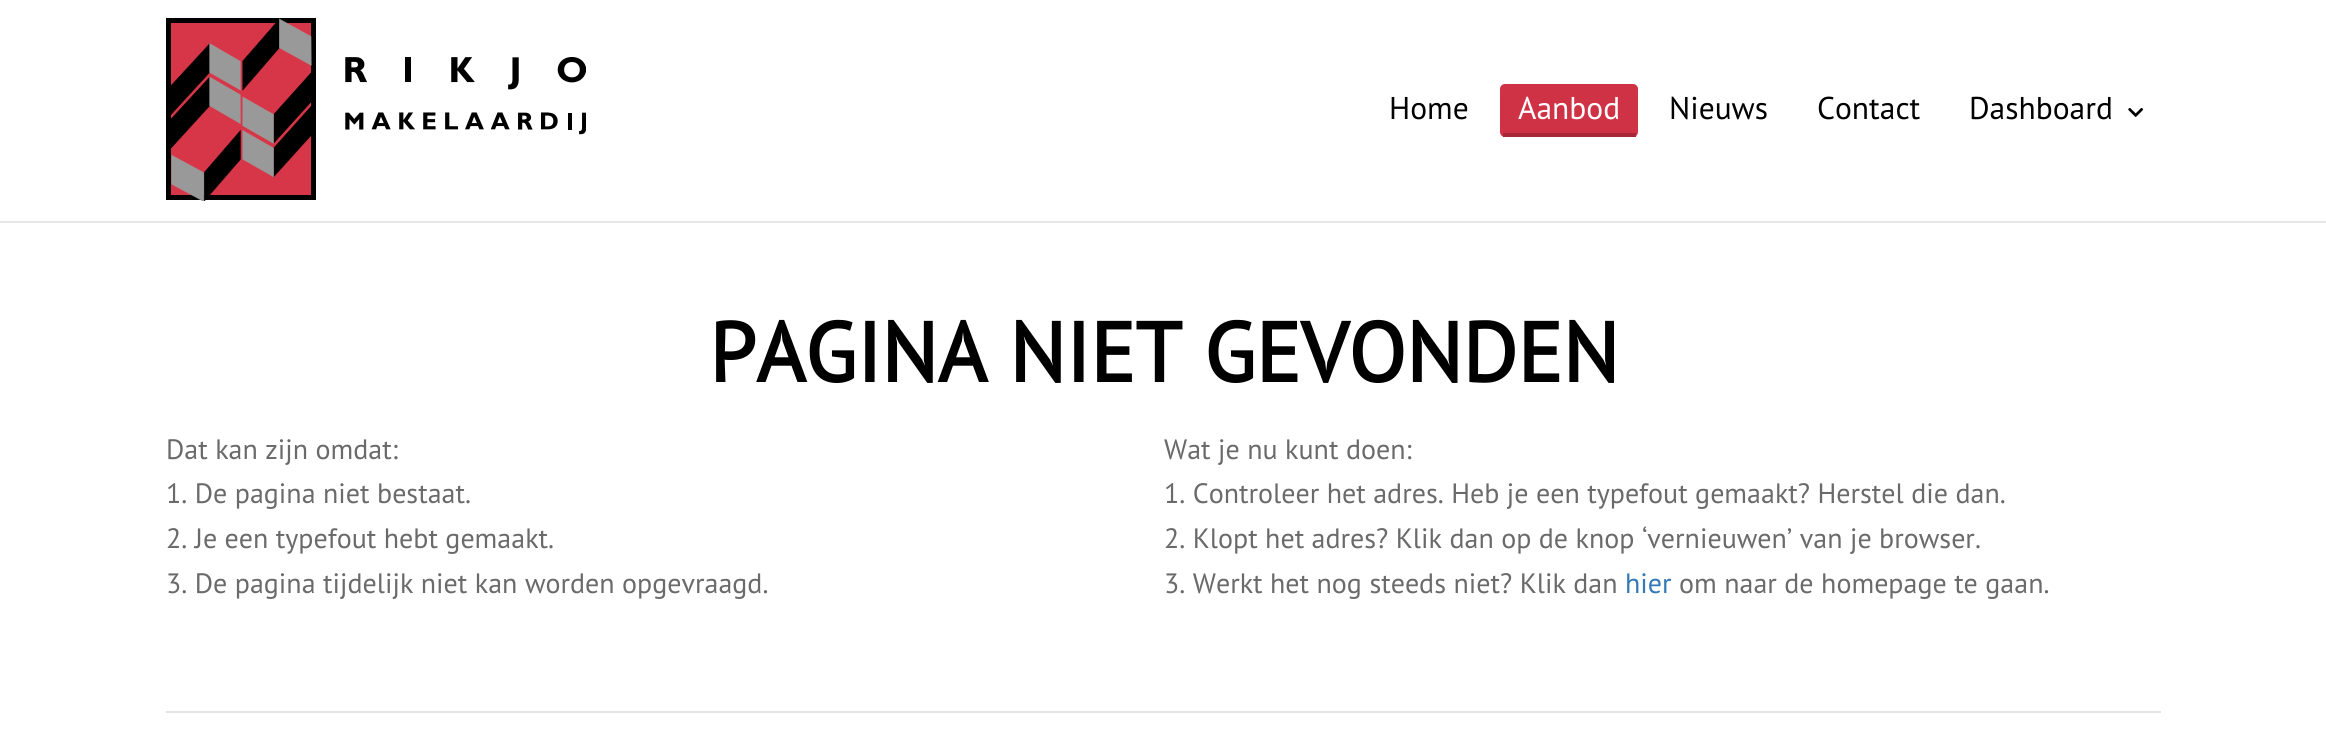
#include <cairo.h>
#include <math.h>
#include <stddef.h>


static void set_color(cairo_t *cr, unsigned color) {
    cairo_set_source_rgb(cr, (color >> 16) / 255.0, (color >> 8 & 255) / 255.0, (color & 255) / 255.0);
}

static void draw_text(cairo_t *cr, double x, double y, const char *s, const char *family, double size, int italic, int bold, unsigned color) {
    cairo_select_font_face(cr, family, italic ? CAIRO_FONT_SLANT_ITALIC : CAIRO_FONT_SLANT_NORMAL,
        bold ? CAIRO_FONT_WEIGHT_BOLD : CAIRO_FONT_WEIGHT_NORMAL);
    cairo_set_font_size(cr, size);
    set_color(cr, color);
    cairo_move_to(cr, x, y);
    cairo_show_text(cr, s);
}

static void fill_rect(cairo_t *cr, double x, double y, double w, double h, unsigned color) {
    set_color(cr, color);
    cairo_rectangle(cr, x, y, w, h);
    cairo_fill(cr);
}

static void rounded_rect(cairo_t *cr, double x, double y, double w, double h, double r) {
    cairo_new_sub_path(cr);
    cairo_arc(cr, x + w - r, y + h - r, r, 0, M_PI / 2);
    cairo_arc(cr, x + r, y + h - r, r, M_PI / 2, M_PI);
    cairo_arc(cr, x + r, y + r, r, M_PI, 1.5 * M_PI);
    cairo_arc(cr, x + w - r, y + r, r, 1.5 * M_PI, 2 * M_PI);
    cairo_close_path(cr);
}

static void draw_image(cairo_t *cr, const char *path, double x, double y, double w, double h) {
    cairo_surface_t *image = cairo_image_surface_create_from_png(path);
    cairo_save(cr);
    cairo_set_source_surface(cr, image, x, y);
    cairo_rectangle(cr, x, y, w, h);
    cairo_fill(cr);
    cairo_restore(cr);
    cairo_surface_destroy(image);
}

int main(void) {
    cairo_surface_t *surface = cairo_image_surface_create(CAIRO_FORMAT_RGB24, 2326, 739);
    cairo_t *cr = cairo_create(surface);
    cairo_font_options_t *options = cairo_font_options_create();
    cairo_font_options_set_hint_metrics(options, CAIRO_HINT_METRICS_OFF);
    cairo_font_options_set_hint_style(options, CAIRO_HINT_STYLE_NONE);
    cairo_set_font_options(cr, options);
    cairo_set_miter_limit(cr, 4);
    set_color(cr, 0xFFFFFF);
    cairo_paint(cr);
    fill_rect(cr, 0, 221, 2326, 2, 0xE7E7E7);
    draw_image(cr, "assets/img1.png", 166, 18, 420, 183);
    draw_text(cr, 1389, 119, "Home", "PT Sans", 31.5, 0, 0, 0x000000);
    set_color(cr, 0xD03245);
    rounded_rect(cr, 1500, 84, 138, 53, 5);
    cairo_fill(cr);
    fill_rect(cr, 1503, 133, 133, 4, 0xA82736);
    draw_text(cr, 1518, 119, "Aanbod", "PT Sans", 31.5, 0, 0, 0xFFFFFF);
    draw_text(cr, 1669, 119, "Nieuws", "PT Sans", 31.5, 0, 0, 0x000000);
    draw_text(cr, 1817, 119, "Contact", "PT Sans", 31.5, 0, 0, 0x000000);
    draw_text(cr, 1969, 119, "Dashboard", "PT Sans", 31.5, 0, 0, 0x000000);
    draw_image(cr, "assets/img2.png", 2128, 108, 16, 9);
    fill_rect(cr, 166, 711, 1995, 2, 0xE5E5E5);
    draw_text(cr, 709, 382, "PAGINA NIET GEVONDEN", "PT Sans", 84, 0, 1, 0x000000);
    draw_text(cr, 166, 459, "Dat kan zijn omdat:", "PT Sans", 28, 0, 0, 0x6A6A6A);
    draw_text(cr, 166, 503, "1. De pagina niet bestaat.", "PT Sans", 28, 0, 0, 0x6A6A6A);
    draw_text(cr, 166, 548, "2. Je een typefout hebt gemaakt.", "PT Sans", 28, 0, 0, 0x6A6A6A);
    draw_text(cr, 166, 593, "3. De pagina tijdelijk niet kan worden opgevraagd.", "PT Sans", 28, 0, 0, 0x6A6A6A);
    draw_text(cr, 1164, 459, "Wat je nu kunt doen:", "PT Sans", 28, 0, 0, 0x6A6A6A);
    draw_text(cr, 1164, 503, "1. Controleer het adres. Heb je een typefout gemaakt? Herstel die dan.", "PT Sans", 28, 0, 0, 0x6A6A6A);
    draw_text(cr, 1164, 548, "2. Klopt het adres? Klik dan op de knop ‘vernieuwen’ van je browser.", "PT Sans", 28, 0, 0, 0x6A6A6A);
    draw_text(cr, 1164, 593, "3. Werkt het nog steeds niet? Klik dan", "PT Sans", 28, 0, 0, 0x6A6A6A);
    draw_text(cr, 1625, 593, "hier", "PT Sans", 28, 0, 0, 0x337AB7);
    draw_text(cr, 1679, 593, "om naar de homepage te gaan.", "PT Sans", 28, 0, 0, 0x6A6A6A);
    cairo_surface_write_to_png(surface, "output.png");
    cairo_font_options_destroy(options);
    cairo_destroy(cr);
    cairo_surface_destroy(surface);
    return 0;
}
